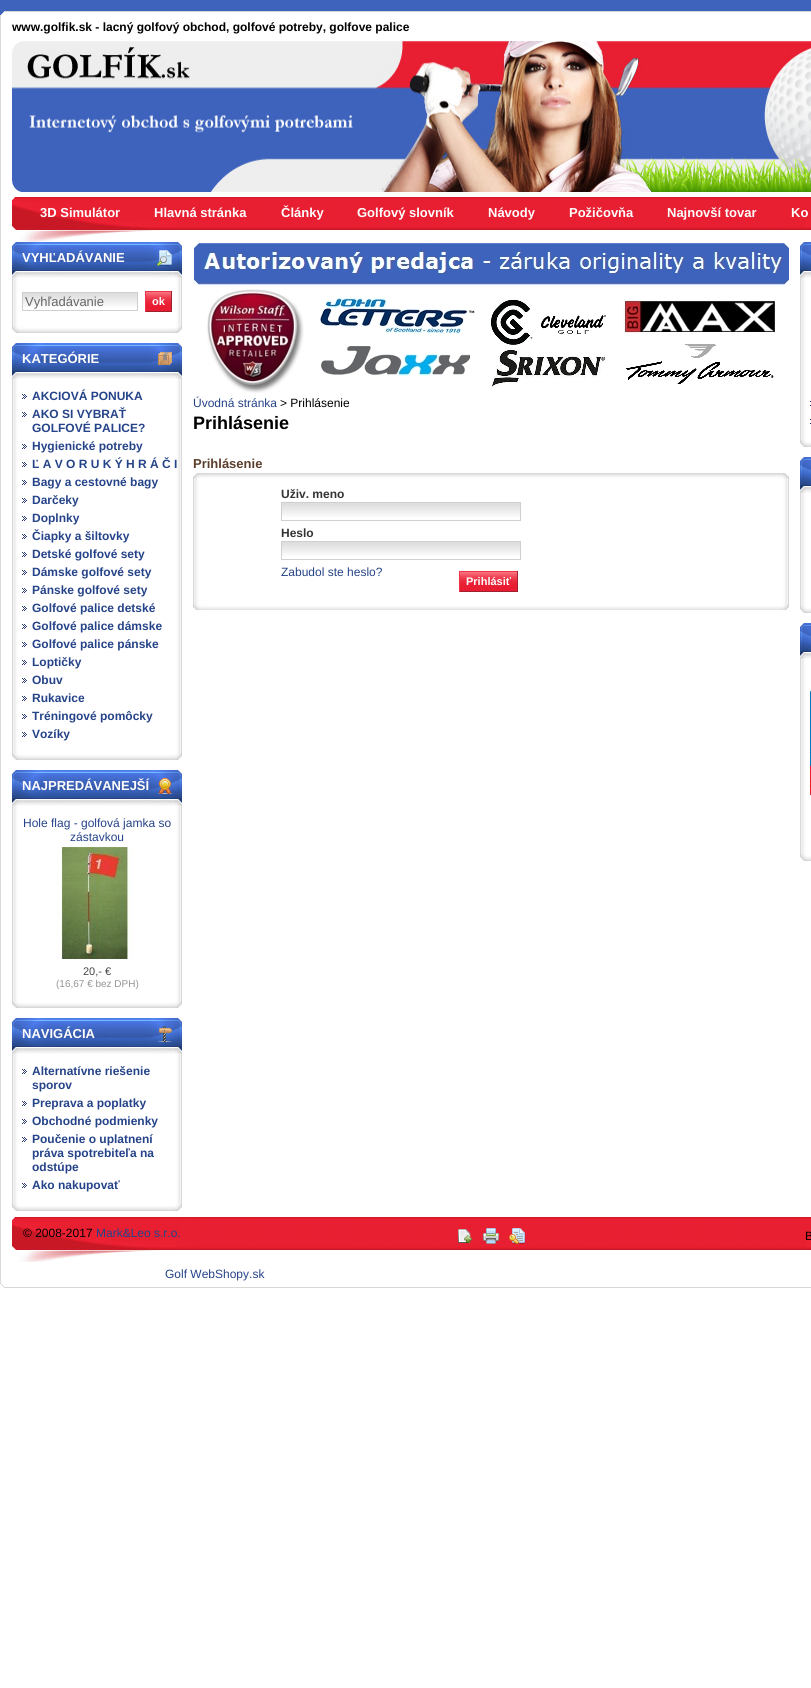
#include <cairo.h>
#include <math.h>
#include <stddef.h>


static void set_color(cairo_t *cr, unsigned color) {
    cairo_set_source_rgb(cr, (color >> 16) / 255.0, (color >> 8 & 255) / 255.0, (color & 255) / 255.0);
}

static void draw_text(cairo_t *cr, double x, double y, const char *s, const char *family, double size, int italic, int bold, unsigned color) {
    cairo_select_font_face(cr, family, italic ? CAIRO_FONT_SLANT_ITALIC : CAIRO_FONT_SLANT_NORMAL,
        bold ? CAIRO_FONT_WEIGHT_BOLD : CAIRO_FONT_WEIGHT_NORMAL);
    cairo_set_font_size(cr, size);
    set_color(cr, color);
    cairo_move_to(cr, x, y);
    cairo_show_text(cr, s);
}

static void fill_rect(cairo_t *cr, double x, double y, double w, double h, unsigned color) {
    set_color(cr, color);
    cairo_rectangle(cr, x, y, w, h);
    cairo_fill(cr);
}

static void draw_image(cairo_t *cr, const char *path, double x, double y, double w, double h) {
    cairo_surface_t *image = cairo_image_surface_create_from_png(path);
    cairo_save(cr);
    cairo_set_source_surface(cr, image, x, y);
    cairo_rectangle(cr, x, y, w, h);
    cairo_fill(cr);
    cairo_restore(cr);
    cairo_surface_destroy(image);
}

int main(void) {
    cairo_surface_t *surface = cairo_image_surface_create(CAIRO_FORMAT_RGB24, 811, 1688);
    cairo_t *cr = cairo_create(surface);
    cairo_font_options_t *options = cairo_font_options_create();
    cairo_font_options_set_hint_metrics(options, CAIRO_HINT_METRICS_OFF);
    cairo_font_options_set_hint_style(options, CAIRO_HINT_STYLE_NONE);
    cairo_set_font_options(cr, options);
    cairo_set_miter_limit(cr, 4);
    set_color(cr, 0xFFFFFF);
    cairo_paint(cr);
    draw_image(cr, "assets/img1.png", 0, 0, 811, 15);
    cairo_rectangle(cr, 0.5, 15.5, 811, 1268);
    set_color(cr, 0xD7D9DC);
    cairo_set_line_width(cr, 1);
    cairo_stroke(cr);
    draw_image(cr, "assets/img2.png", 0, 11, 811, 5);
    draw_text(cr, 12, 31, "www.golfik.sk - lacný golfový obchod, golfové potreby, golfove palice", "Liberation Sans", 12, 0, 1, 0x000000);
    draw_image(cr, "assets/img3.png", 12, 41, 799, 151);
    draw_image(cr, "assets/img4.png", 12, 197, 799, 45);
    draw_text(cr, 40, 217, "3D Simulátor", "Liberation Sans", 13, 0, 1, 0xFEFEFD);
    draw_text(cr, 154, 217, "Hlavná stránka", "Liberation Sans", 13, 0, 1, 0xFEFEFD);
    draw_text(cr, 281, 217, "Články", "Liberation Sans", 13, 0, 1, 0xFEFEFD);
    draw_text(cr, 357, 217, "Golfový slovník", "Liberation Sans", 13, 0, 1, 0xFEFEFD);
    draw_text(cr, 488, 217, "Návody", "Liberation Sans", 13, 0, 1, 0xFEFEFD);
    draw_text(cr, 569, 217, "Požičovňa", "Liberation Sans", 13, 0, 1, 0xFEFEFD);
    draw_text(cr, 667, 217, "Najnovší tovar", "Liberation Sans", 13, 0, 1, 0xFEFEFD);
    draw_text(cr, 791, 217, "Ko", "Liberation Sans", 13, 0, 1, 0xFEFEFD);
    draw_image(cr, "assets/img5.png", 12, 278, 170, 926);
    draw_image(cr, "assets/img6.png", 12, 242, 170, 36);
    draw_image(cr, "assets/img7.png", 157, 250, 15, 16);
    draw_text(cr, 22, 262, "VYHĽADÁVANIE", "Liberation Sans", 13, 0, 1, 0xFEFEFD);
    draw_image(cr, "assets/img8.png", 23, 293, 114, 14);
    cairo_rectangle(cr, 22.5, 292.5, 115, 18);
    set_color(cr, 0xCFCFCF);
    cairo_stroke(cr);
    draw_text(cr, 25, 306, "Vyhľadávanie", "Liberation Sans", 13, 0, 0, 0x666666);
    draw_image(cr, "assets/img9.png", 146, 292, 25, 19);
    fill_rect(cr, 145, 291, 27, 1, 0xEC3245);
    fill_rect(cr, 171, 291, 1, 21, 0x9D212E);
    fill_rect(cr, 145, 311, 27, 1, 0x9D212E);
    fill_rect(cr, 145, 291, 1, 21, 0xEC3245);
    draw_text(cr, 152, 305, "ok", "Liberation Sans", 11, 0, 1, 0xFEFEFD);
    draw_image(cr, "assets/img10.png", 12, 326, 170, 7);
    draw_image(cr, "assets/img6.png", 12, 343, 170, 36);
    fill_rect(cr, 12, 333, 170, 10, 0xFFFFFF);
    draw_image(cr, "assets/img11.png", 158, 352, 14, 13);
    draw_text(cr, 22, 363, "KATEGÓRIE", "Liberation Sans", 13, 0, 1, 0xFEFEFD);
    draw_image(cr, "assets/img12.png", 22, 394, 5, 5);
    draw_text(cr, 32, 400, "AKCIOVÁ PONUKA", "Liberation Sans", 12, 0, 1, 0x254388);
    draw_image(cr, "assets/img12.png", 22, 412, 5, 5);
    draw_text(cr, 32, 418, "AKO SI VYBRAŤ", "Liberation Sans", 12, 0, 1, 0x254388);
    draw_text(cr, 32, 432, "GOLFOVÉ PALICE?", "Liberation Sans", 12, 0, 1, 0x254388);
    draw_image(cr, "assets/img12.png", 22, 444, 5, 5);
    draw_text(cr, 32, 450, "Hygienické potreby", "Liberation Sans", 12, 0, 1, 0x254388);
    draw_image(cr, "assets/img12.png", 22, 462, 5, 5);
    draw_text(cr, 32, 468, "Ľ A V O R U K Ý H R Á Č I", "Liberation Sans", 12, 0, 1, 0x254388);
    draw_image(cr, "assets/img12.png", 22, 480, 5, 5);
    draw_text(cr, 32, 486, "Bagy a cestovné bagy", "Liberation Sans", 12, 0, 1, 0x254388);
    draw_image(cr, "assets/img12.png", 22, 498, 5, 5);
    draw_text(cr, 32, 504, "Darčeky", "Liberation Sans", 12, 0, 1, 0x254388);
    draw_image(cr, "assets/img12.png", 22, 516, 5, 5);
    draw_text(cr, 32, 522, "Doplnky", "Liberation Sans", 12, 0, 1, 0x254388);
    draw_image(cr, "assets/img12.png", 22, 534, 5, 5);
    draw_text(cr, 32, 540, "Čiapky a šiltovky", "Liberation Sans", 12, 0, 1, 0x254388);
    draw_image(cr, "assets/img12.png", 22, 552, 5, 5);
    draw_text(cr, 32, 558, "Detské golfové sety", "Liberation Sans", 12, 0, 1, 0x254388);
    draw_image(cr, "assets/img12.png", 22, 570, 5, 5);
    draw_text(cr, 32, 576, "Dámske golfové sety", "Liberation Sans", 12, 0, 1, 0x254388);
    draw_image(cr, "assets/img12.png", 22, 588, 5, 5);
    draw_text(cr, 32, 594, "Pánske golfové sety", "Liberation Sans", 12, 0, 1, 0x254388);
    draw_image(cr, "assets/img12.png", 22, 606, 5, 5);
    draw_text(cr, 32, 612, "Golfové palice detské", "Liberation Sans", 12, 0, 1, 0x254388);
    draw_image(cr, "assets/img12.png", 22, 624, 5, 5);
    draw_text(cr, 32, 630, "Golfové palice dámske", "Liberation Sans", 12, 0, 1, 0x254388);
    draw_image(cr, "assets/img12.png", 22, 642, 5, 5);
    draw_text(cr, 32, 648, "Golfové palice pánske", "Liberation Sans", 12, 0, 1, 0x254388);
    draw_image(cr, "assets/img12.png", 22, 660, 5, 5);
    draw_text(cr, 32, 666, "Loptičky", "Liberation Sans", 12, 0, 1, 0x254388);
    draw_image(cr, "assets/img12.png", 22, 678, 5, 5);
    draw_text(cr, 32, 684, "Obuv", "Liberation Sans", 12, 0, 1, 0x254388);
    draw_image(cr, "assets/img12.png", 22, 696, 5, 5);
    draw_text(cr, 32, 702, "Rukavice", "Liberation Sans", 12, 0, 1, 0x254388);
    draw_image(cr, "assets/img12.png", 22, 714, 5, 5);
    draw_text(cr, 32, 720, "Tréningové pomôcky", "Liberation Sans", 12, 0, 1, 0x254388);
    draw_image(cr, "assets/img12.png", 22, 732, 5, 5);
    draw_text(cr, 32, 738, "Vozíky", "Liberation Sans", 12, 0, 1, 0x254388);
    draw_image(cr, "assets/img10.png", 12, 753, 170, 7);
    draw_image(cr, "assets/img6.png", 12, 770, 170, 36);
    fill_rect(cr, 12, 760, 170, 10, 0xFFFFFF);
    draw_image(cr, "assets/img13.png", 158, 778, 15, 16);
    draw_text(cr, 22, 790, "NAJPREDÁVANEJŠÍ", "Liberation Sans", 13, 0, 1, 0xFEFEFD);
    draw_text(cr, 23, 827, "Hole flag - golfová jamka so", "Liberation Sans", 12, 0, 0, 0x254388);
    draw_text(cr, 70, 841, "zástavkou", "Liberation Sans", 12, 0, 0, 0x254388);
    draw_image(cr, "assets/img14.png", 57, 847, 77, 112);
    draw_text(cr, 83, 975, "20,- €", "Liberation Sans", 11, 0, 0, 0x464646);
    draw_text(cr, 56, 987, "(16,67 € bez DPH)", "Liberation Sans", 10, 0, 0, 0x949494);
    draw_image(cr, "assets/img10.png", 12, 1001, 170, 7);
    draw_image(cr, "assets/img6.png", 12, 1018, 170, 36);
    fill_rect(cr, 12, 1008, 170, 10, 0xFFFFFF);
    draw_image(cr, "assets/img15.png", 157, 1026, 15, 16);
    draw_text(cr, 22, 1038, "NAVIGÁCIA", "Liberation Sans", 13, 0, 1, 0xFEFEFD);
    draw_image(cr, "assets/img12.png", 22, 1069, 5, 5);
    draw_text(cr, 32, 1075, "Alternatívne riešenie", "Liberation Sans", 12, 0, 1, 0x254388);
    draw_text(cr, 32, 1089, "sporov", "Liberation Sans", 12, 0, 1, 0x254388);
    draw_image(cr, "assets/img12.png", 22, 1101, 5, 5);
    draw_text(cr, 32, 1107, "Preprava a poplatky", "Liberation Sans", 12, 0, 1, 0x254388);
    draw_image(cr, "assets/img12.png", 22, 1119, 5, 5);
    draw_text(cr, 32, 1125, "Obchodné podmienky", "Liberation Sans", 12, 0, 1, 0x254388);
    draw_image(cr, "assets/img12.png", 22, 1137, 5, 5);
    draw_text(cr, 32, 1143, "Poučenie o uplatnení", "Liberation Sans", 12, 0, 1, 0x254388);
    draw_text(cr, 32, 1157, "práva spotrebiteľa na", "Liberation Sans", 12, 0, 1, 0x254388);
    draw_text(cr, 32, 1171, "odstúpe", "Liberation Sans", 12, 0, 1, 0x254388);
    draw_image(cr, "assets/img12.png", 22, 1183, 5, 5);
    draw_text(cr, 32, 1189, "Ako nakupovať", "Liberation Sans", 12, 0, 1, 0x254388);
    draw_image(cr, "assets/img10.png", 12, 1204, 170, 7);
    draw_image(cr, "assets/img16.png", 194, 243, 595, 150);
    draw_text(cr, 193, 407, "Úvodná stránka", "Liberation Sans", 12, 0, 0, 0x254388);
    draw_text(cr, 280, 407, "> Prihlásenie", "Liberation Sans", 12, 0, 0, 0x000000);
    draw_text(cr, 193, 429, "Prihlásenie", "Liberation Sans", 18, 0, 1, 0x000000);
    draw_text(cr, 193, 468, "Prihlásenie", "Liberation Sans", 13, 0, 1, 0x5C3E2C);
    draw_image(cr, "assets/img17.png", 193, 473, 596, 6);
    draw_image(cr, "assets/img18.png", 193, 479, 596, 125);
    draw_text(cr, 281, 498, "Uživ. meno", "Liberation Sans", 12, 0, 1, 0x333333);
    draw_image(cr, "assets/img19.png", 282, 503, 238, 14);
    cairo_rectangle(cr, 281.5, 502.5, 239, 18);
    set_color(cr, 0xCFCFCF);
    cairo_stroke(cr);
    draw_text(cr, 281, 537, "Heslo", "Liberation Sans", 12, 0, 1, 0x333333);
    draw_image(cr, "assets/img19.png", 282, 542, 238, 14);
    cairo_rectangle(cr, 281.5, 541.5, 239, 18);
    set_color(cr, 0xCFCFCF);
    cairo_stroke(cr);
    draw_text(cr, 281, 576, "Zabudol ste heslo?", "Liberation Sans", 12, 0, 0, 0x254388);
    draw_image(cr, "assets/img20.png", 460, 572, 57, 19);
    fill_rect(cr, 459, 571, 59, 1, 0xEC3245);
    fill_rect(cr, 517, 571, 1, 21, 0x9D212E);
    fill_rect(cr, 459, 591, 59, 1, 0x9D212E);
    fill_rect(cr, 459, 571, 1, 21, 0xEC3245);
    draw_text(cr, 466, 585, "Prihlásiť", "Liberation Sans", 11, 0, 1, 0xFEFEFD);
    draw_image(cr, "assets/img21.png", 193, 604, 596, 6);
    draw_image(cr, "assets/img22.png", 800, 278, 11, 576);
    draw_image(cr, "assets/img23.png", 800, 242, 11, 36);
    draw_image(cr, "assets/img24.png", 810, 401, 1, 5);
    draw_image(cr, "assets/img24.png", 810, 419, 1, 5);
    draw_image(cr, "assets/img25.png", 800, 440, 11, 7);
    draw_image(cr, "assets/img23.png", 800, 457, 11, 36);
    fill_rect(cr, 800, 447, 5, 10, 0xFFFFFF);
    draw_image(cr, "assets/img25.png", 800, 606, 11, 7);
    draw_image(cr, "assets/img23.png", 800, 623, 11, 36);
    fill_rect(cr, 800, 613, 5, 10, 0xFFFFFF);
    draw_image(cr, "assets/img26.png", 810, 689, 1, 108);
    draw_image(cr, "assets/img25.png", 800, 854, 11, 7);
    draw_image(cr, "assets/img4.png", 12, 1217, 799, 45);
    draw_text(cr, 23, 1237, "© 2008-2017", "Liberation Sans", 12, 0, 0, 0x000000);
    draw_text(cr, 96, 1237, "Mark&Leo s.r.o.", "Liberation Sans", 12, 0, 0, 0x254388);
    draw_image(cr, "assets/img27.png", 458, 1229, 14, 14);
    draw_image(cr, "assets/img28.png", 483, 1228, 16, 16);
    draw_image(cr, "assets/img29.png", 509, 1228, 16, 16);
    draw_text(cr, 805, 1240, "B", "Liberation Sans", 12, 0, 0, 0x000000);
    draw_text(cr, 165, 1278, "Golf WebShopy.sk", "Liberation Sans", 12, 0, 0, 0x254388);
    draw_image(cr, "assets/img30.png", 0, 1283, 811, 5);
    cairo_surface_write_to_png(surface, "output.png");
    cairo_font_options_destroy(options);
    cairo_destroy(cr);
    cairo_surface_destroy(surface);
    return 0;
}
